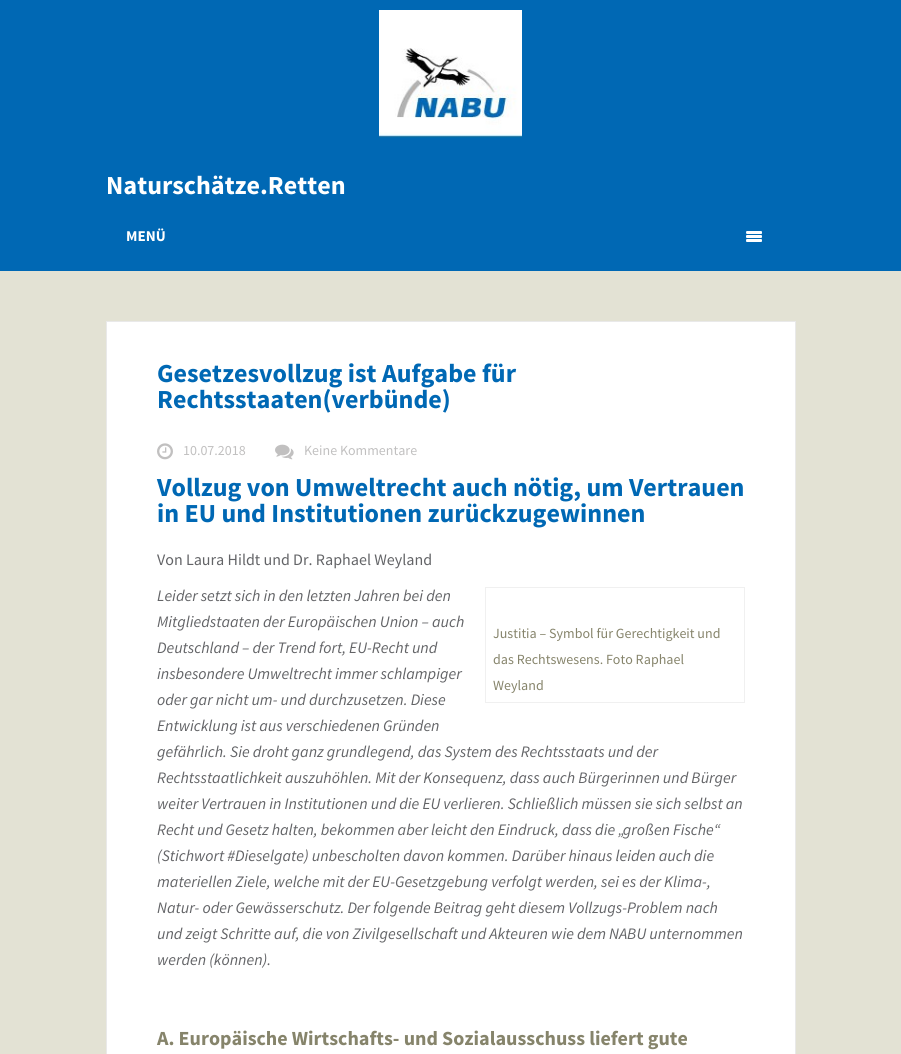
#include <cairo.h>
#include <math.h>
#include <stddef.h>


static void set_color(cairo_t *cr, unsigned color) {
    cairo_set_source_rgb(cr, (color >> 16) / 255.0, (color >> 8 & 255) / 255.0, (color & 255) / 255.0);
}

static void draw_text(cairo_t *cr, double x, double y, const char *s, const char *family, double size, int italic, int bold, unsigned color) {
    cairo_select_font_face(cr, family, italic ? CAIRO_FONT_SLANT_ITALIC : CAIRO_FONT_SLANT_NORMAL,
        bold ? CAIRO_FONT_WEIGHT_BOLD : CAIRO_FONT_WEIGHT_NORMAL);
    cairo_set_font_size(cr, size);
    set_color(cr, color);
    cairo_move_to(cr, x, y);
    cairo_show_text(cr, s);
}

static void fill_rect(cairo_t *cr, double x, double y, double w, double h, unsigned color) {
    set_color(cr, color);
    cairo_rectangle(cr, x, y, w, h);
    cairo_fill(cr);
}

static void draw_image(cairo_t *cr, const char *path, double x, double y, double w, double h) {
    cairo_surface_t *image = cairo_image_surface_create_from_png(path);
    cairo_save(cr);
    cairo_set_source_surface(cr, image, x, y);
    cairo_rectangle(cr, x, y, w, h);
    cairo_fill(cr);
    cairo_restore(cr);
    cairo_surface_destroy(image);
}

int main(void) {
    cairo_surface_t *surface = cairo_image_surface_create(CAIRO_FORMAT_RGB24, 901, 1054);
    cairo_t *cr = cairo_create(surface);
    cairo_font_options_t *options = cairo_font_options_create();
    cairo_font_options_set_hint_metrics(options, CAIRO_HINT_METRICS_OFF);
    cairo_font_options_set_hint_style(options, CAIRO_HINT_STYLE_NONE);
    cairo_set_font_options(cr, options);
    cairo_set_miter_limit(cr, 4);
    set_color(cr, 0xE3E2D4);
    cairo_paint(cr);
    fill_rect(cr, 0, 0, 901, 271, 0x0068B4);
    draw_image(cr, "assets/img1.png", 379, 10, 143, 128);
    draw_text(cr, 106, 194, "Naturschätze.Retten", "Source Sans Pro", 26, 0, 1, 0xFFFFFF);
    draw_image(cr, "assets/img2.png", 746, 231, 16, 11);
    draw_text(cr, 126, 241, "MENÜ", "Source Sans Pro", 15, 0, 1, 0xFFFFFF);
    fill_rect(cr, 107, 322, 688, 732, 0xFFFFFF);
    fill_rect(cr, 106, 321, 690, 1, 0xE9E9E9);
    fill_rect(cr, 795, 321, 1, 733, 0xE9E9E9);
    fill_rect(cr, 106, 321, 1, 733, 0xE9E9E9);
    draw_text(cr, 157, 382, "Gesetzesvollzug ist Aufgabe für", "Source Sans Pro", 26, 0, 1, 0x0068B4);
    draw_text(cr, 157, 408, "Rechtsstaaten(verbünde)", "Source Sans Pro", 26, 0, 1, 0x0068B4);
    draw_image(cr, "assets/img3.png", 157, 443, 16, 17);
    draw_text(cr, 183, 455, "10.07.2018", "Source Sans Pro", 14, 0, 0, 0xC1C0C0);
    draw_image(cr, "assets/img4.png", 275, 444, 19, 16);
    draw_text(cr, 304, 455, "Keine Kommentare", "Source Sans Pro", 14, 0, 0, 0xC1C0C0);
    draw_text(cr, 157, 496, "Vollzug von Umweltrecht auch nötig, um Vertrauen", "Source Sans Pro", 26, 0, 1, 0x0068B4);
    draw_text(cr, 157, 522, "in EU und Institutionen zurückzugewinnen", "Source Sans Pro", 26, 0, 1, 0x0068B4);
    draw_text(cr, 157, 565, "Von Laura Hildt und Dr. Raphael Weyland", "Source Sans Pro", 16, 0, 0, 0x636467);
    draw_text(cr, 157, 601, "Leider setzt sich in den letzten Jahren bei den", "Source Sans Pro", 16, 1, 0, 0x636467);
    draw_text(cr, 157, 627, "Mitgliedstaaten der Europäischen Union – auch", "Source Sans Pro", 16, 1, 0, 0x636467);
    draw_text(cr, 157, 653, "Deutschland – der Trend fort, EU-Recht und", "Source Sans Pro", 16, 1, 0, 0x636467);
    draw_text(cr, 157, 679, "insbesondere Umweltrecht immer schlampiger", "Source Sans Pro", 16, 1, 0, 0x636467);
    draw_text(cr, 157, 705, "oder gar nicht um- und durchzusetzen. Diese", "Source Sans Pro", 16, 1, 0, 0x636467);
    draw_text(cr, 157, 731, "Entwicklung ist aus verschiedenen Gründen", "Source Sans Pro", 16, 1, 0, 0x636467);
    draw_text(cr, 157, 757, "gefährlich. Sie droht ganz grundlegend, das System des Rechtsstaats und der", "Source Sans Pro", 16, 1, 0, 0x636467);
    draw_text(cr, 157, 783, "Rechtsstaatlichkeit auszuhöhlen. Mit der Konsequenz, dass auch Bürgerinnen und Bürger", "Source Sans Pro", 16, 1, 0, 0x636467);
    draw_text(cr, 157, 809, "weiter Vertrauen in Institutionen und die EU verlieren. Schließlich müssen sie sich selbst an", "Source Sans Pro", 16, 1, 0, 0x636467);
    draw_text(cr, 157, 835, "Recht und Gesetz halten, bekommen aber leicht den Eindruck, dass die „großen Fische“", "Source Sans Pro", 16, 1, 0, 0x636467);
    draw_text(cr, 157, 861, "(Stichwort #Dieselgate) unbescholten davon kommen. Darüber hinaus leiden auch die", "Source Sans Pro", 16, 1, 0, 0x636467);
    draw_text(cr, 157, 887, "materiellen Ziele, welche mit der EU-Gesetzgebung verfolgt werden, sei es der Klima-,", "Source Sans Pro", 16, 1, 0, 0x636467);
    draw_text(cr, 157, 913, "Natur- oder Gewässerschutz. Der folgende Beitrag geht diesem Vollzugs-Problem nach", "Source Sans Pro", 16, 1, 0, 0x636467);
    draw_text(cr, 157, 939, "und zeigt Schritte auf, die von Zivilgesellschaft und Akteuren wie dem NABU unternommen", "Source Sans Pro", 16, 1, 0, 0x636467);
    draw_text(cr, 157, 965, "werden (können).", "Source Sans Pro", 16, 1, 0, 0x636467);
    cairo_rectangle(cr, 485.5, 587.5, 259, 115);
    set_color(cr, 0xF0F0F0);
    cairo_set_line_width(cr, 1);
    cairo_stroke(cr);
    draw_text(cr, 493, 638, "Justitia – Symbol für Gerechtigkeit und", "Source Sans Pro", 14, 0, 0, 0x86846B);
    draw_text(cr, 493, 664, "das Rechtswesens. Foto Raphael", "Source Sans Pro", 14, 0, 0, 0x86846B);
    draw_text(cr, 493, 690, "Weyland", "Source Sans Pro", 14, 0, 0, 0x86846B);
    draw_text(cr, 157, 1045, "A. Europäische Wirtschafts- und Sozialausschuss liefert gute", "Source Sans Pro", 20, 0, 1, 0x86846B);
    cairo_surface_write_to_png(surface, "output.png");
    cairo_font_options_destroy(options);
    cairo_destroy(cr);
    cairo_surface_destroy(surface);
    return 0;
}
